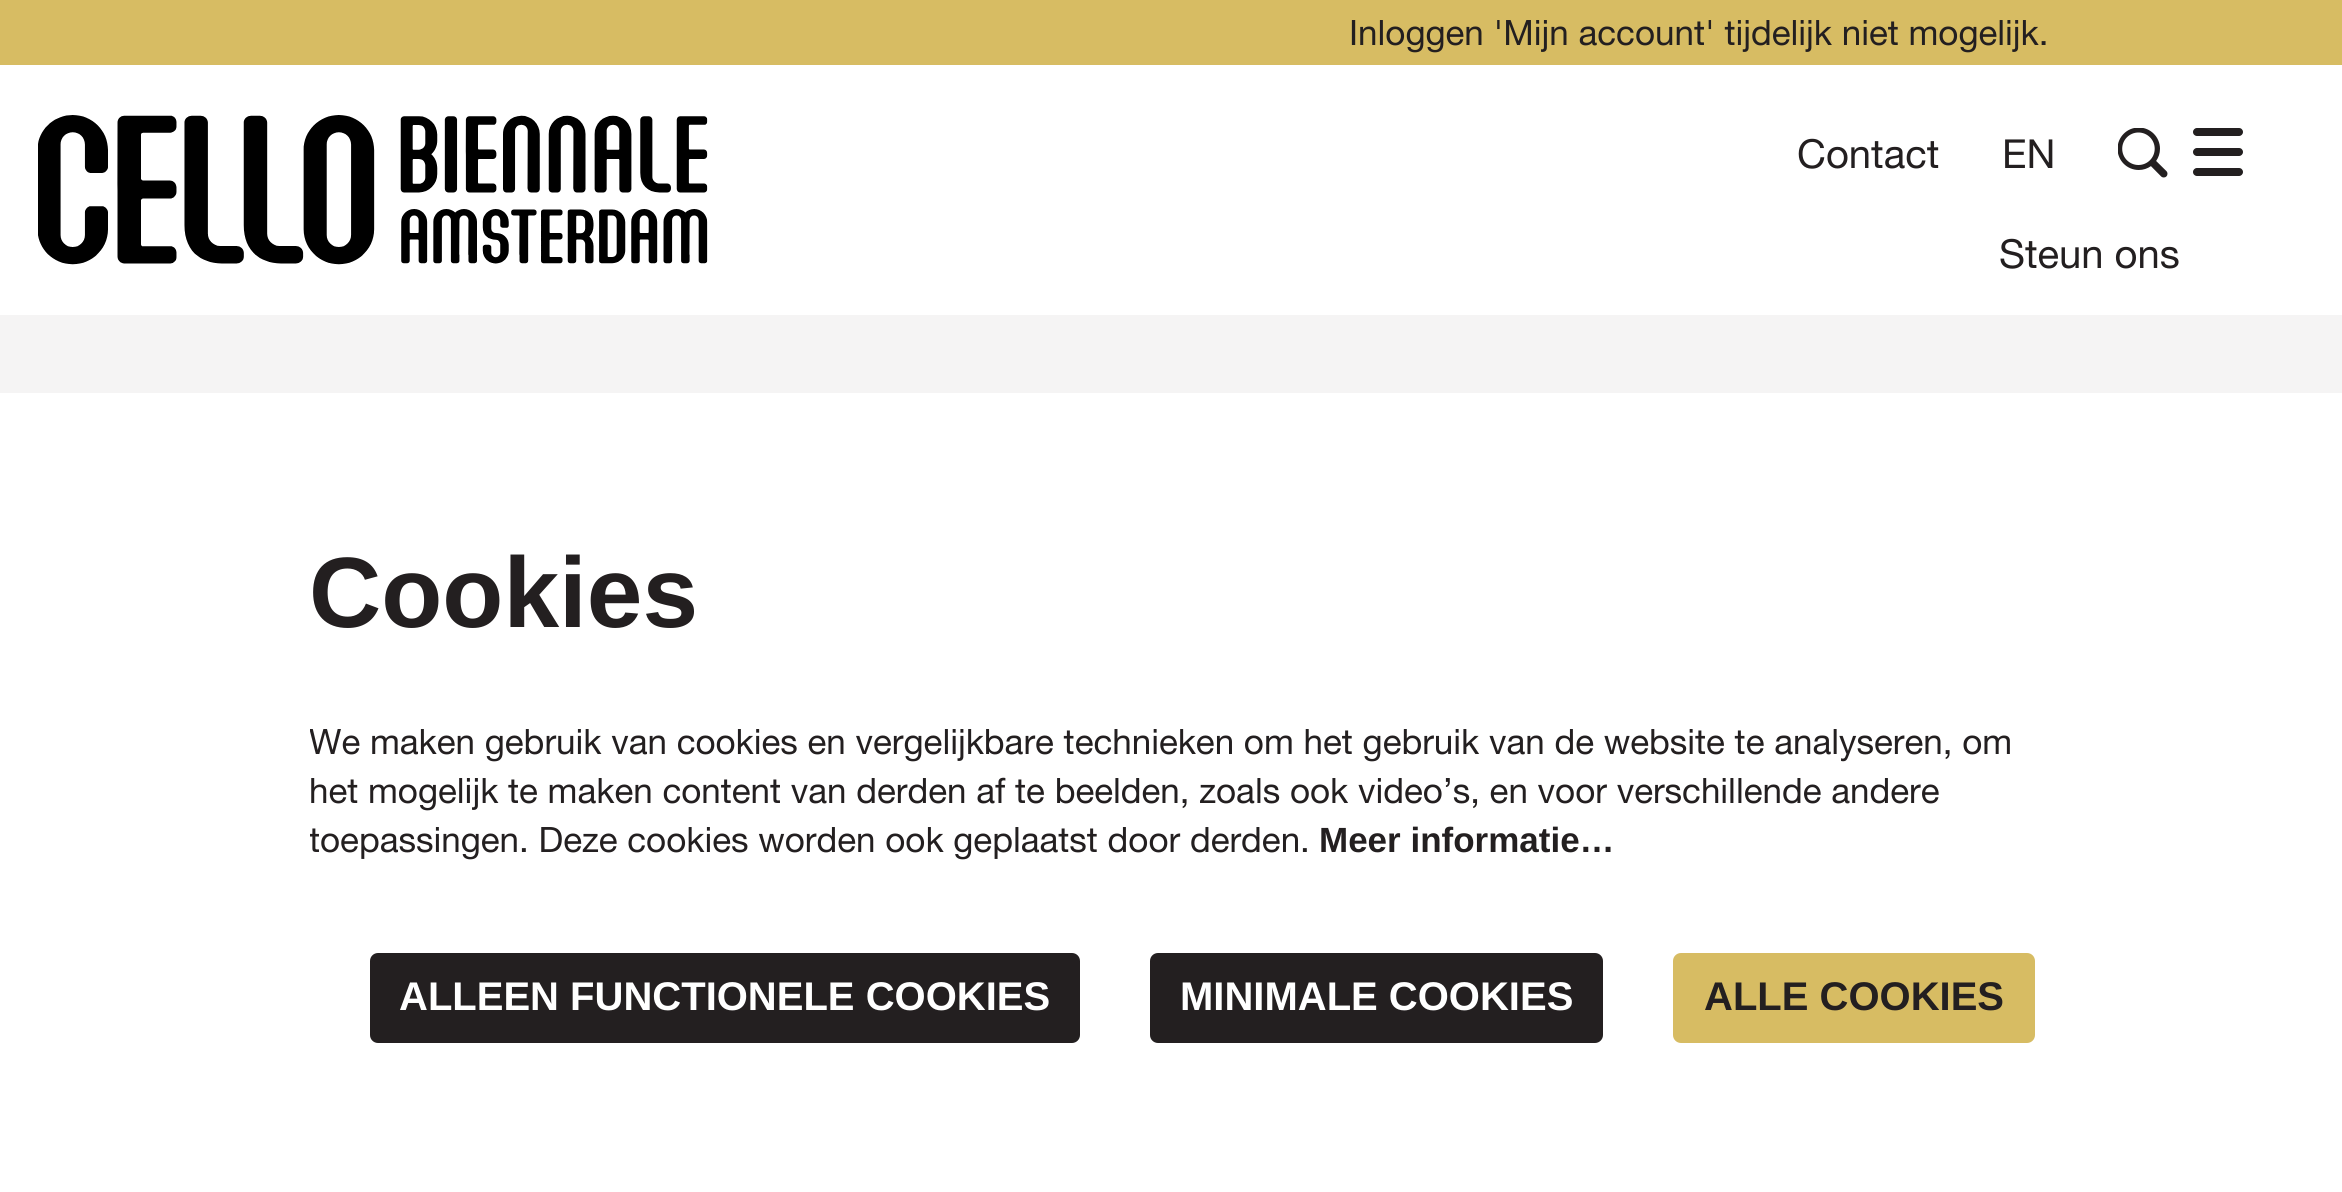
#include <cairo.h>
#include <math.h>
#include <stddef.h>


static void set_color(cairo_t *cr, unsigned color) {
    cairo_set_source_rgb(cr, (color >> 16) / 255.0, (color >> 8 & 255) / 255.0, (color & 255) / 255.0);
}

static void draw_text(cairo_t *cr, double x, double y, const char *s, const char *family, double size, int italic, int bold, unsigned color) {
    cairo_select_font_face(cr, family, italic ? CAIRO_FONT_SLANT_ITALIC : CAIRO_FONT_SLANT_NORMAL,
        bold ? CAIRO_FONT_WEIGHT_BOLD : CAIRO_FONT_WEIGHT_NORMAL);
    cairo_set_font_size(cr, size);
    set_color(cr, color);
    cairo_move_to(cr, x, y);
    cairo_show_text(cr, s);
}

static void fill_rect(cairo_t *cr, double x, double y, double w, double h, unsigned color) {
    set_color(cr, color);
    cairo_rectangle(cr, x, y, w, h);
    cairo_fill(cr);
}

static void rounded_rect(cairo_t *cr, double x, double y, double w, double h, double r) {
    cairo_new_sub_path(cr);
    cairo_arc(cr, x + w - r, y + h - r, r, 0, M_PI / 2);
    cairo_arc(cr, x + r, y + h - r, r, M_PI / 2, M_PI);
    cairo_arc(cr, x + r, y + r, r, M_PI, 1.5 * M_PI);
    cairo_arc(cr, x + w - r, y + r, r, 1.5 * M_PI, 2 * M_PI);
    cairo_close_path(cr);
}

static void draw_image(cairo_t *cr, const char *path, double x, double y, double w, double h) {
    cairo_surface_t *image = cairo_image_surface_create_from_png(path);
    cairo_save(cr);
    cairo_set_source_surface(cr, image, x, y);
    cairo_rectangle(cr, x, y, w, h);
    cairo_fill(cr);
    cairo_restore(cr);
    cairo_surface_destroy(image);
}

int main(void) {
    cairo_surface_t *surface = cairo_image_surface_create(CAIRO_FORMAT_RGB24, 2342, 1192);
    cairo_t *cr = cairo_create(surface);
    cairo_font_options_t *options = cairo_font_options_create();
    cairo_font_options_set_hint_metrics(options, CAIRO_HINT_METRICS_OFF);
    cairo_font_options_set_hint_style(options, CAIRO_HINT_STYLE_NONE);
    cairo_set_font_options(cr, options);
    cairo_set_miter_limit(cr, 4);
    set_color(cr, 0xFFFFFF);
    cairo_paint(cr);
    fill_rect(cr, 0, 0, 2342, 65, 0xD7BC63);
    draw_text(cr, 1349, 45, "Inloggen 'Mijn account' tijdelijk niet mogelijk.", "Helvetica Neue", 35, 0, 0, 0x231F20);
    draw_image(cr, "assets/img1.png", 38, 115, 670, 150);
    draw_text(cr, 1797, 168, "Contact", "Helvetica Neue", 40, 0, 0, 0x231F20);
    draw_text(cr, 2002, 168, "EN", "Helvetica Neue", 40, 0, 0, 0x231F20);
    draw_image(cr, "assets/img2.png", 2118, 128, 50, 50);
    draw_text(cr, 1999, 268, "Steun ons", "Helvetica Neue", 40, 0, 0, 0x231F20);
    rounded_rect(cr, 2193, 128, 50, 8, 4);
    cairo_fill(cr);
    rounded_rect(cr, 2193, 148, 50, 8, 4);
    cairo_fill(cr);
    rounded_rect(cr, 2193, 168, 50, 8, 4);
    cairo_fill(cr);
    fill_rect(cr, 0, 315, 2342, 78, 0xF5F4F4);
    draw_text(cr, 309, 627, "Cookies", "Liberation Sans", 100, 0, 1, 0x231F20);
    cairo_save(cr);
    cairo_rectangle(cr, 310, 718, 1725, 197);
    cairo_clip(cr);
    draw_text(cr, 309, 754, "We maken gebruik van cookies en vergelijkbare technieken om het gebruik van de website te analyseren, om", "Helvetica Neue", 35, 0, 0, 0x231F20);
    cairo_restore(cr);
    draw_text(cr, 309, 803, "het mogelijk te maken content van derden af te beelden, zoals ook video’s, en voor verschillende andere", "Helvetica Neue", 35, 0, 0, 0x231F20);
    cairo_save(cr);
    cairo_rectangle(cr, 310, 718, 1725, 197);
    cairo_clip(cr);
    draw_text(cr, 309, 852, "toepassingen. Deze cookies worden ook geplaatst door derden.", "Helvetica Neue", 35, 0, 0, 0x231F20);
    cairo_restore(cr);
    draw_text(cr, 1319, 852, "Meer informatie…", "Liberation Sans", 35, 0, 1, 0x231F20);
    rounded_rect(cr, 370, 953, 710, 90, 8);
    cairo_fill(cr);
    draw_text(cr, 399, 1010, "ALLEEN FUNCTIONELE COOKIES", "Liberation Sans", 40, 0, 1, 0xFFFFFF);
    set_color(cr, 0x231F20);
    rounded_rect(cr, 1150, 953, 453, 90, 8);
    cairo_fill(cr);
    draw_text(cr, 1180, 1010, "MINIMALE COOKIES", "Liberation Sans", 40, 0, 1, 0xFFFFFF);
    set_color(cr, 0xD7BC63);
    rounded_rect(cr, 1673, 953, 362, 90, 8);
    cairo_fill(cr);
    draw_text(cr, 1704, 1010, "ALLE COOKIES", "Liberation Sans", 40, 0, 1, 0x231F20);
    cairo_surface_write_to_png(surface, "output.png");
    cairo_font_options_destroy(options);
    cairo_destroy(cr);
    cairo_surface_destroy(surface);
    return 0;
}
